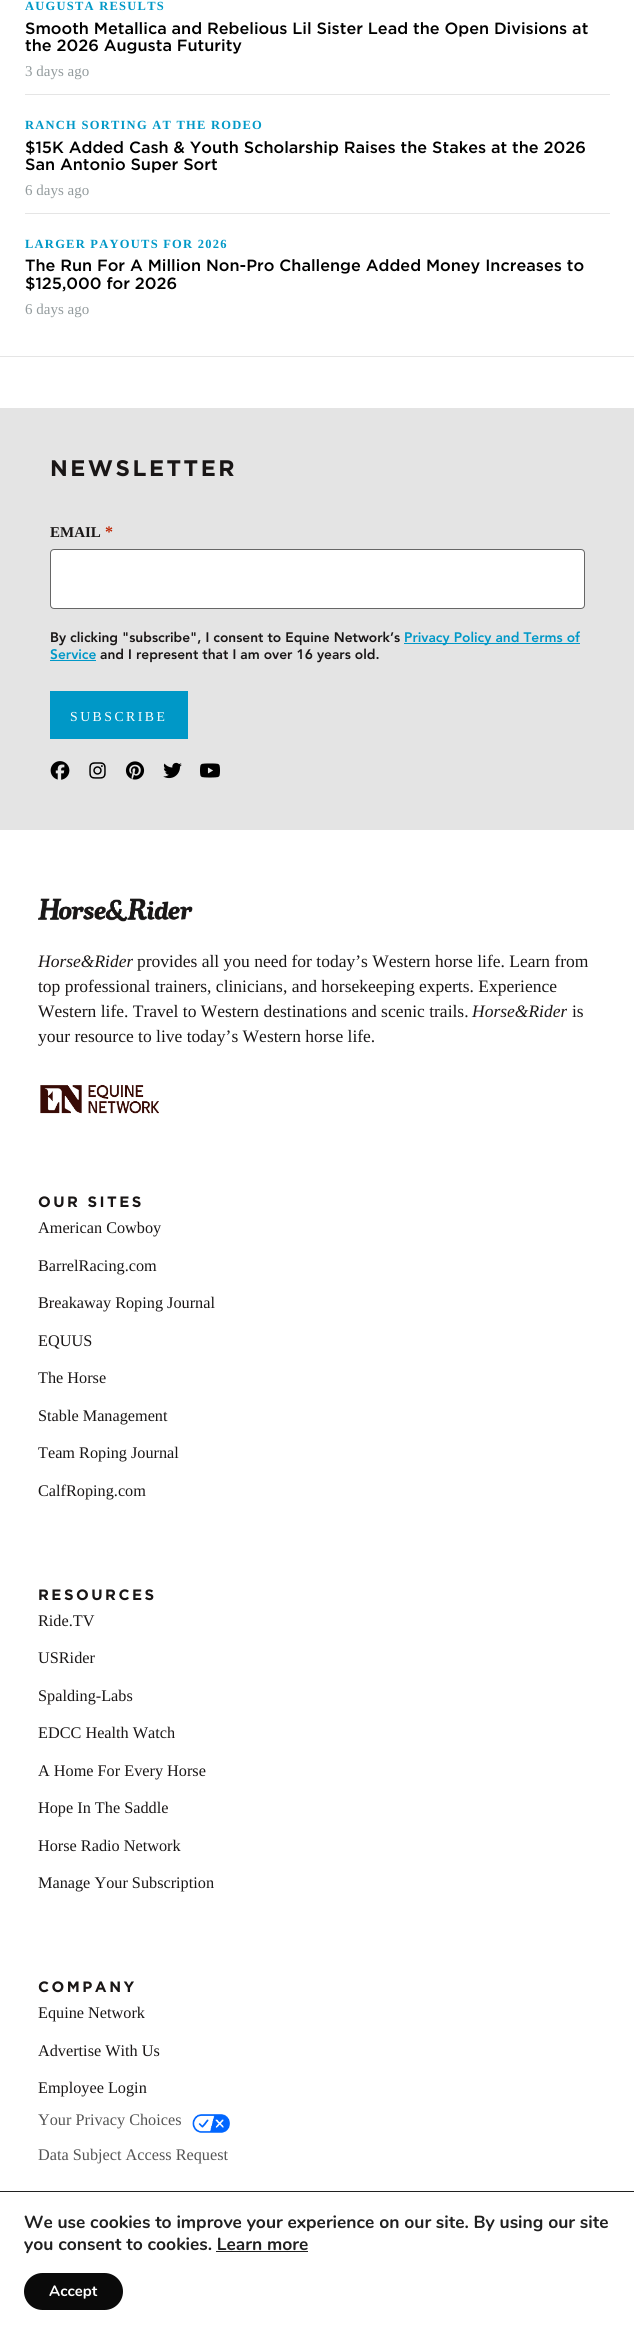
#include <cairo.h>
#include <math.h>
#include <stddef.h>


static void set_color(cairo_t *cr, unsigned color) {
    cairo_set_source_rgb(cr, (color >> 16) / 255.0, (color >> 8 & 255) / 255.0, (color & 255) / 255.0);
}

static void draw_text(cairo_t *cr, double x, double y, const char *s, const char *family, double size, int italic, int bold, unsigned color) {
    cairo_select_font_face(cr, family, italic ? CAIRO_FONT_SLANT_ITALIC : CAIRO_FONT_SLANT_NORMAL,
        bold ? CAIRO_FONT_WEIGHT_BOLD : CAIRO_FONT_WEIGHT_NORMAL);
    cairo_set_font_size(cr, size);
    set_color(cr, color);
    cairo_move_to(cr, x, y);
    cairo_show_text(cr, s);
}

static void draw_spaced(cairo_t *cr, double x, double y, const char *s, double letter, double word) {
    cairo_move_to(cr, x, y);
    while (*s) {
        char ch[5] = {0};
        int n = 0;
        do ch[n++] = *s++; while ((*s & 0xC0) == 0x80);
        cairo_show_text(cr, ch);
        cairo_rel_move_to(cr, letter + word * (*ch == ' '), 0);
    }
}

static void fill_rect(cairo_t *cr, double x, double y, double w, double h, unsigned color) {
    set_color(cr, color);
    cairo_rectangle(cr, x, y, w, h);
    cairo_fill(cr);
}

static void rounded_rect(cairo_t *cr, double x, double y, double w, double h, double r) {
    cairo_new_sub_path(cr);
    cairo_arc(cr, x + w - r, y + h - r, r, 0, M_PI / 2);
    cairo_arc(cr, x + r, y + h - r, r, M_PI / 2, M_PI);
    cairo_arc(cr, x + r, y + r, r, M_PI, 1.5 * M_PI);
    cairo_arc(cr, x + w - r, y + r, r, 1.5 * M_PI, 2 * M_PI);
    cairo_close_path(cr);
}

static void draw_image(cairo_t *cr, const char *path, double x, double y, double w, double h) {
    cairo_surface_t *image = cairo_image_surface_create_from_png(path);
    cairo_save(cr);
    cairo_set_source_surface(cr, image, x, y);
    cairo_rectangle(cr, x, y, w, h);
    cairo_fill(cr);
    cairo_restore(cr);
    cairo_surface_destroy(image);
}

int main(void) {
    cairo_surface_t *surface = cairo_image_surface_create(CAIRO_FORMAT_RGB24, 634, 2332);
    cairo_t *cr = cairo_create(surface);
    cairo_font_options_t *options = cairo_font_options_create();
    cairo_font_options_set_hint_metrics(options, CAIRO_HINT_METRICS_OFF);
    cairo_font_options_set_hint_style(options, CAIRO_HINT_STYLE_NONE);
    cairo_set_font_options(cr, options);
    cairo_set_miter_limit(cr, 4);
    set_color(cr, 0xFFFFFF);
    cairo_paint(cr);
    fill_rect(cr, 25, 94, 585, 1, 0xE5E5E5);
    cairo_select_font_face(cr, "Liberation Serif", CAIRO_FONT_SLANT_NORMAL, CAIRO_FONT_WEIGHT_BOLD);
    cairo_set_font_size(cr, 12.5);
    set_color(cr, 0x0098C7);
    draw_spaced(cr, 25, 10, "AUGUSTA RESULTS", 1.25, 0);
    draw_text(cr, 25, 34, "Smooth Metallica and Rebelious Lil Sister Lead the Open Divisions at", "Gotham Medium", 16.25, 0, 0, 0x000000);
    draw_text(cr, 25, 51, "the 2026 Augusta Futurity", "Gotham Medium", 16.25, 0, 0, 0x000000);
    draw_text(cr, 25, 76, "3 days ago", "Liberation Serif", 15, 0, 0, 0x939B9D);
    fill_rect(cr, 25, 213, 585, 1, 0xE5E5E5);
    cairo_select_font_face(cr, "Liberation Serif", CAIRO_FONT_SLANT_NORMAL, CAIRO_FONT_WEIGHT_BOLD);
    cairo_set_font_size(cr, 12.5);
    set_color(cr, 0x0098C7);
    draw_spaced(cr, 25, 129, "RANCH SORTING AT THE RODEO", 1.25, 0);
    draw_text(cr, 25, 153, "$15K Added Cash & Youth Scholarship Raises the Stakes at the 2026", "Gotham Medium", 16.25, 0, 0, 0x000000);
    draw_text(cr, 25, 170, "San Antonio Super Sort", "Gotham Medium", 16.25, 0, 0, 0x000000);
    draw_text(cr, 25, 195, "6 days ago", "Liberation Serif", 15, 0, 0, 0x939B9D);
    cairo_select_font_face(cr, "Liberation Serif", CAIRO_FONT_SLANT_NORMAL, CAIRO_FONT_WEIGHT_BOLD);
    cairo_set_font_size(cr, 12.5);
    set_color(cr, 0x0098C7);
    draw_spaced(cr, 25, 248, "LARGER PAYOUTS FOR 2026", 1.25, 0);
    draw_text(cr, 25, 271, "The Run For A Million Non-Pro Challenge Added Money Increases to", "Gotham Medium", 16.25, 0, 0, 0x000000);
    draw_text(cr, 25, 289, "$125,000 for 2026", "Gotham Medium", 16.25, 0, 0, 0x000000);
    draw_text(cr, 25, 314, "6 days ago", "Liberation Serif", 15, 0, 0, 0x939B9D);
    fill_rect(cr, 0, 356, 634, 1, 0xE5E5E5);
    fill_rect(cr, 0, 408, 634, 422, 0xE4E4E4);
    cairo_select_font_face(cr, "Gotham", CAIRO_FONT_SLANT_NORMAL, CAIRO_FONT_WEIGHT_BOLD);
    cairo_set_font_size(cr, 22.5);
    set_color(cr, 0x191616);
    draw_spaced(cr, 50, 476, "NEWSLETTER", 2.5, 0);
    draw_text(cr, 50, 537, "EMAIL", "Liberation Serif", 15, 0, 1, 0x191616);
    draw_text(cr, 105, 537, "*", "Liberation Serif", 16, 0, 1, 0xC02B0A);
    set_color(cr, 0xFFFFFF);
    rounded_rect(cr, 50.5, 549.5, 534, 59, 3.5);
    cairo_fill_preserve(cr);
    set_color(cr, 0x666666);
    cairo_set_line_width(cr, 1);
    cairo_stroke(cr);
    draw_text(cr, 50, 642, "By clicking \"subscribe\", I consent to Equine Network’s", "Avenir Black", 13.75, 0, 0, 0x191616);
    fill_rect(cr, 404, 643, 176, 1, 0x0098C7);
    draw_text(cr, 404, 642, "Privacy Policy and Terms of", "Avenir Black", 13.75, 0, 0, 0x0098C7);
    draw_text(cr, 50, 659, "Service", "Avenir Black", 13.75, 0, 0, 0x0098C7);
    fill_rect(cr, 50, 660, 46, 1, 0x0098C7);
    draw_text(cr, 100, 659, "and I represent that I am over 16 years old.", "Avenir Black", 13.75, 0, 0, 0x191616);
    fill_rect(cr, 50, 691, 138, 48, 0x0098C7);
    cairo_select_font_face(cr, "Liberation Serif", CAIRO_FONT_SLANT_NORMAL, CAIRO_FONT_WEIGHT_NORMAL);
    set_color(cr, 0xFFFFFF);
    draw_spaced(cr, 70, 721, "SUBSCRIBE", 2.5, 0);
    draw_image(cr, "assets/img1.png", 50, 761, 20, 19);
    draw_image(cr, "assets/img2.png", 89, 762, 17, 17);
    draw_image(cr, "assets/img3.png", 125, 761, 20, 19);
    draw_image(cr, "assets/img4.png", 163, 762, 19, 17);
    draw_image(cr, "assets/img5.png", 200, 763, 20, 15);
    draw_image(cr, "assets/img6.png", 38, 898, 155, 24);
    draw_text(cr, 38, 967, "Horse&Rider", "Liberation Serif", 17.5, 1, 0, 0x191616);
    draw_text(cr, 137, 967, "provides all you need for today’s Western horse life. Learn from", "Liberation Serif", 17.5, 0, 0, 0x191616);
    draw_text(cr, 38, 992, "top professional trainers, clinicians, and horsekeeping experts. Experience", "Liberation Serif", 17.5, 0, 0, 0x191616);
    draw_text(cr, 38, 1017, "Western life. Travel to Western destinations and scenic trails.", "Liberation Serif", 17.5, 0, 0, 0x191616);
    draw_text(cr, 472, 1017, "Horse&Rider", "Liberation Serif", 17.5, 1, 0, 0x191616);
    draw_text(cr, 572, 1017, "is", "Liberation Serif", 17.5, 0, 0, 0x191616);
    draw_text(cr, 38, 1042, "your resource to live today’s Western horse life.", "Liberation Serif", 17.5, 0, 0, 0x191616);
    draw_image(cr, "assets/img7.png", 40, 1084, 119, 30);
    cairo_select_font_face(cr, "Gotham", CAIRO_FONT_SLANT_NORMAL, CAIRO_FONT_WEIGHT_BOLD);
    cairo_set_font_size(cr, 15);
    draw_spaced(cr, 38, 1207, "OUR SITES", 2.5, 0);
    draw_text(cr, 38, 1233, "American Cowboy", "Liberation Serif", 16.25, 0, 0, 0x191616);
    draw_text(cr, 38, 1271, "BarrelRacing.com", "Liberation Serif", 16.25, 0, 0, 0x191616);
    draw_text(cr, 38, 1308, "Breakaway Roping Journal", "Liberation Serif", 16.25, 0, 0, 0x191616);
    draw_text(cr, 38, 1346, "EQUUS", "Liberation Serif", 16.25, 0, 0, 0x191616);
    draw_text(cr, 38, 1383, "The Horse", "Liberation Serif", 16.25, 0, 0, 0x191616);
    draw_text(cr, 38, 1421, "Stable Management", "Liberation Serif", 16.25, 0, 0, 0x191616);
    draw_text(cr, 38, 1458, "Team Roping Journal", "Liberation Serif", 16.25, 0, 0, 0x191616);
    draw_text(cr, 38, 1496, "CalfRoping.com", "Liberation Serif", 16.25, 0, 0, 0x191616);
    cairo_select_font_face(cr, "Gotham", CAIRO_FONT_SLANT_NORMAL, CAIRO_FONT_WEIGHT_BOLD);
    cairo_set_font_size(cr, 15);
    draw_spaced(cr, 38, 1600, "RESOURCES", 2.5, 0);
    draw_text(cr, 38, 1626, "Ride.TV", "Liberation Serif", 16.25, 0, 0, 0x191616);
    draw_text(cr, 38, 1663, "USRider", "Liberation Serif", 16.25, 0, 0, 0x191616);
    draw_text(cr, 38, 1701, "Spalding-Labs", "Liberation Serif", 16.25, 0, 0, 0x191616);
    draw_text(cr, 38, 1738, "EDCC Health Watch", "Liberation Serif", 16.25, 0, 0, 0x191616);
    draw_text(cr, 38, 1776, "A Home For Every Horse", "Liberation Serif", 16.25, 0, 0, 0x191616);
    draw_text(cr, 38, 1813, "Hope In The Saddle", "Liberation Serif", 16.25, 0, 0, 0x191616);
    draw_text(cr, 38, 1851, "Horse Radio Network", "Liberation Serif", 16.25, 0, 0, 0x191616);
    draw_text(cr, 38, 1888, "Manage Your Subscription", "Liberation Serif", 16.25, 0, 0, 0x191616);
    cairo_select_font_face(cr, "Gotham", CAIRO_FONT_SLANT_NORMAL, CAIRO_FONT_WEIGHT_BOLD);
    cairo_set_font_size(cr, 15);
    draw_spaced(cr, 38, 1992, "COMPANY", 2.5, 0);
    draw_text(cr, 38, 2018, "Equine Network", "Liberation Serif", 16.25, 0, 0, 0x191616);
    draw_text(cr, 38, 2056, "Advertise With Us", "Liberation Serif", 16.25, 0, 0, 0x191616);
    draw_text(cr, 38, 2093, "Employee Login", "Liberation Serif", 16.25, 0, 0, 0x191616);
    draw_text(cr, 38, 2125, "Your Privacy Choices", "Liberation Serif", 16.25, 0, 0, 0x555555);
    draw_image(cr, "assets/img8.png", 192, 2114, 38, 19);
    draw_text(cr, 38, 2160, "Data Subject Access Request", "Liberation Serif", 16.25, 0, 0, 0x555555);
    fill_rect(cr, 0, 2191, 634, 1, 0x202020);
    draw_text(cr, 24, 2228, "We use cookies to improve your experience on our site. By using our site", "Nunito", 17.5, 0, 1, 0x202020);
    draw_text(cr, 24, 2250, "you consent to cookies. Learn more", "Nunito", 17.5, 0, 1, 0x202020);
    fill_rect(cr, 216, 2251, 92, 1, 0x202020);
    set_color(cr, 0x0A0A0A);
    rounded_rect(cr, 24, 2273, 99, 37, 18.5);
    cairo_fill(cr);
    draw_text(cr, 49, 2296, "Accept", "Nunito", 15, 0, 1, 0xFFFFFF);
    cairo_surface_write_to_png(surface, "output.png");
    cairo_font_options_destroy(options);
    cairo_destroy(cr);
    cairo_surface_destroy(surface);
    return 0;
}
